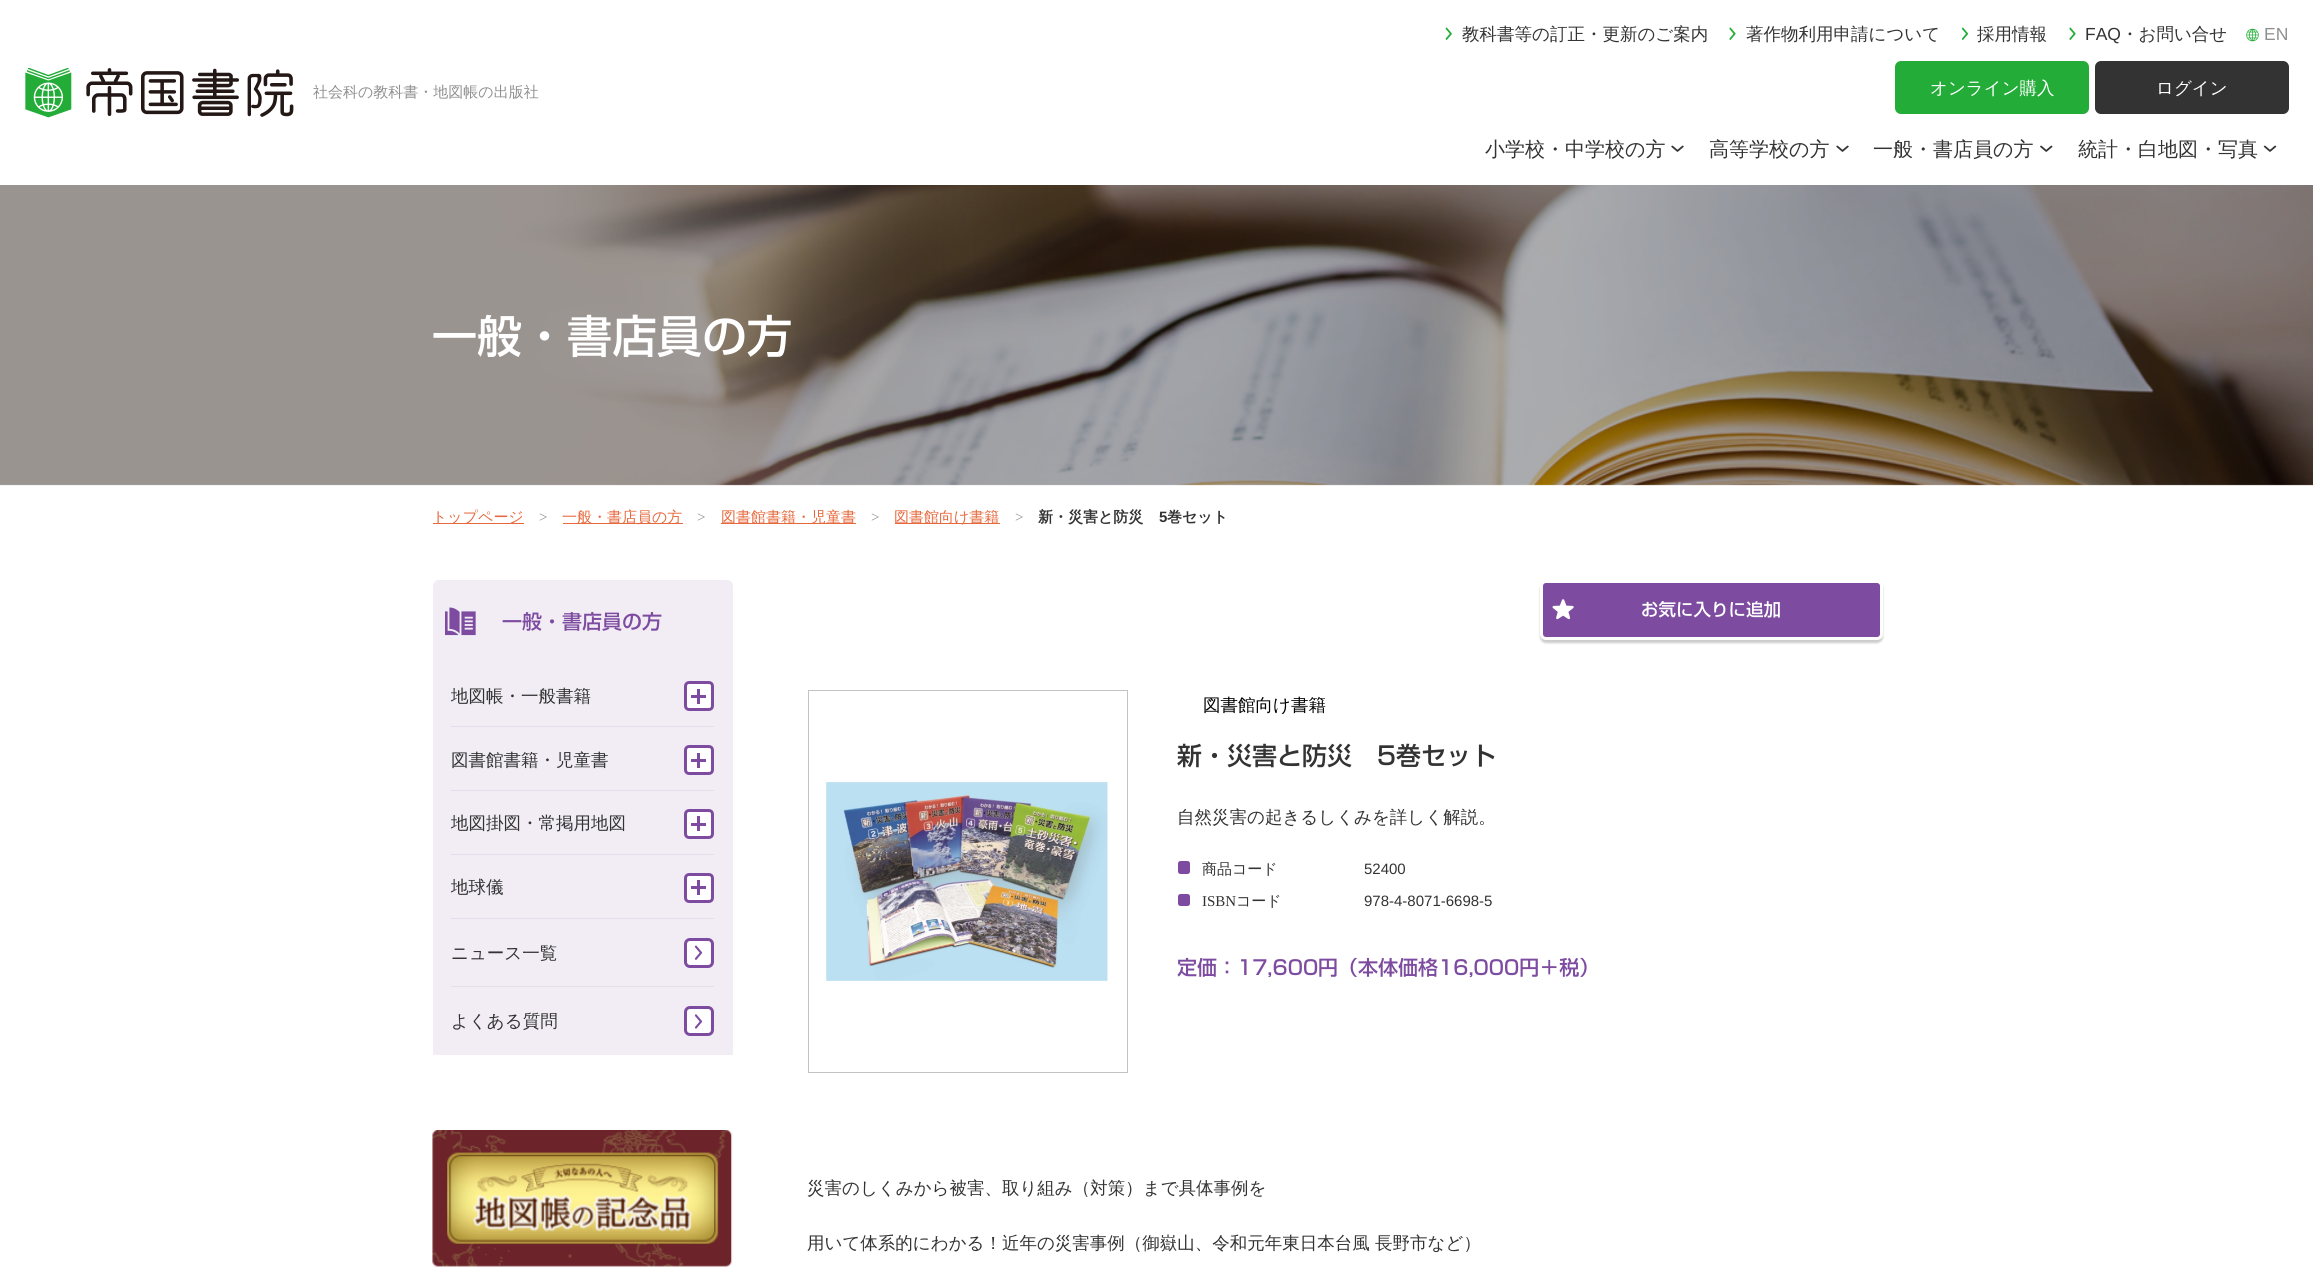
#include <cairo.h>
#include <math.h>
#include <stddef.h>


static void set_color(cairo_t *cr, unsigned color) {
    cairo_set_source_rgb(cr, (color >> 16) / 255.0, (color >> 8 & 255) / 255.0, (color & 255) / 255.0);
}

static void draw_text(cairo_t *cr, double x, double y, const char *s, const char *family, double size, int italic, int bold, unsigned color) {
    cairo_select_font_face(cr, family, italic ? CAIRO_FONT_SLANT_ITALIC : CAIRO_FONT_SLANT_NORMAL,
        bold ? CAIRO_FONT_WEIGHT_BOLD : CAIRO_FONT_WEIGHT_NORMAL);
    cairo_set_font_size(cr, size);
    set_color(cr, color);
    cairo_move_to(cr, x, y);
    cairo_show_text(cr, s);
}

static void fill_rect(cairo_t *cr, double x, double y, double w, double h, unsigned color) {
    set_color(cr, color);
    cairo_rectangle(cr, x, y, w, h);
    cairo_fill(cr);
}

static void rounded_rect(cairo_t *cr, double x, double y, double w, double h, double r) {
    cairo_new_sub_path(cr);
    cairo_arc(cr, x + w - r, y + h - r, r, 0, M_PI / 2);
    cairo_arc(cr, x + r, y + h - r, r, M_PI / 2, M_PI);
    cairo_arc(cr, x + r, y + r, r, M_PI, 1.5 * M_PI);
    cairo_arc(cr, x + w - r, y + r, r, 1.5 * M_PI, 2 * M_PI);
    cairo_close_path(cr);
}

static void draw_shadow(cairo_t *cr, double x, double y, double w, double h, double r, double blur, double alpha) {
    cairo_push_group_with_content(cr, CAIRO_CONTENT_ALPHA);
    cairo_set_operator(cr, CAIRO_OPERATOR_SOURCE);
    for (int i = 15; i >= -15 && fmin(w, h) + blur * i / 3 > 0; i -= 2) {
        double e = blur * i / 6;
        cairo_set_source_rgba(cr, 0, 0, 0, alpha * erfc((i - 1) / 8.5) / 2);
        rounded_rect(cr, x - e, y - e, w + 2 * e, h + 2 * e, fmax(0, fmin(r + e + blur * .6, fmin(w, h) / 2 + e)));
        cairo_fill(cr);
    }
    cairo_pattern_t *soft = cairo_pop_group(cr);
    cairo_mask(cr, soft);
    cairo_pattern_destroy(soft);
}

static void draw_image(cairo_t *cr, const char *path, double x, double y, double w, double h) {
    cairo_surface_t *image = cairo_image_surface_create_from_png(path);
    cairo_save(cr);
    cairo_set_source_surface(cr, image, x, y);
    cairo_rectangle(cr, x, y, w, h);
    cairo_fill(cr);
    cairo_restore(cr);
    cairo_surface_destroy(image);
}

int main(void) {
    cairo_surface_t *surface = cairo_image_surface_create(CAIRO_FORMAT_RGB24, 2313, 1276);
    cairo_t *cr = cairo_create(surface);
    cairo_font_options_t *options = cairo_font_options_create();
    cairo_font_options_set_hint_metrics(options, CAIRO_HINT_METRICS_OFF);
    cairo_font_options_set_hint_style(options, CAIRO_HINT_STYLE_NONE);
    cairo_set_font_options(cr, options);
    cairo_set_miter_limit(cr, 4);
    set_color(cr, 0xFFFFFF);
    cairo_paint(cr);
    draw_image(cr, "assets/img1.png", 25, 68, 269, 50);
    draw_text(cr, 313, 97, "社会科の教科書・地図帳の出版社", "WenQuanYi Zen Hei Medium", 15, 0, 0, 0x909090);
    draw_image(cr, "assets/img2.png", 1445, 27, 7, 13);
    draw_text(cr, 1462, 40, "教科書等の訂正・更新のご案内", "WenQuanYi Zen Hei Medium", 17.5, 0, 0, 0x333333);
    draw_image(cr, "assets/img3.png", 1729, 27, 7, 13);
    draw_text(cr, 1746, 40, "著作物利用申請について", "WenQuanYi Zen Hei Medium", 17.5, 0, 0, 0x333333);
    draw_image(cr, "assets/img4.png", 1961, 27, 8, 13);
    draw_text(cr, 1977, 40, "採用情報", "WenQuanYi Zen Hei Medium", 17.5, 0, 0, 0x333333);
    draw_image(cr, "assets/img3.png", 2069, 27, 7, 13);
    draw_text(cr, 2085, 40, "FAQ", "Liberation Sans", 17.5, 0, 0, 0x333333);
    draw_text(cr, 2121, 40, "・お問い合せ", "WenQuanYi Zen Hei Medium", 17.5, 0, 0, 0x333333);
    draw_image(cr, "assets/img5.png", 2246, 28, 13, 14);
    draw_text(cr, 2264, 40, "EN", "Liberation Sans", 17.5, 0, 0, 0x909090);
    set_color(cr, 0x23AC38);
    rounded_rect(cr, 1895, 61, 194, 53, 6);
    cairo_fill(cr);
    draw_text(cr, 1930, 94, "オンライン購入", "WenQuanYi Zen Hei Medium", 17.5, 0, 0, 0xFFFFFF);
    set_color(cr, 0x333333);
    rounded_rect(cr, 2095, 61, 194, 53, 6);
    cairo_fill(cr);
    draw_text(cr, 2156, 94, "ログイン", "WenQuanYi Zen Hei Medium", 17.5, 0, 0, 0xFFFFFF);
    draw_text(cr, 1485, 156, "小学校・中学校の方", "WenQuanYi Zen Hei Medium", 20, 0, 0, 0x333333);
    draw_image(cr, "assets/img6.png", 1671, 145, 13, 7);
    draw_text(cr, 1709, 156, "高等学校の方", "WenQuanYi Zen Hei Medium", 20, 0, 0, 0x333333);
    draw_image(cr, "assets/img6.png", 1836, 145, 13, 7);
    draw_text(cr, 1873, 156, "一般・書店員の方", "WenQuanYi Zen Hei Medium", 20, 0, 0, 0x333333);
    draw_image(cr, "assets/img7.png", 2040, 145, 13, 7);
    draw_text(cr, 2078, 156, "統計・白地図・写真", "WenQuanYi Zen Hei Medium", 20, 0, 0, 0x333333);
    draw_image(cr, "assets/img8.png", 2263, 145, 14, 7);
    draw_image(cr, "assets/img9.png", 0, 185, 2313, 301);
    draw_text(cr, 432, 353, "一般・書店員の方", "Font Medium", 45, 0, 0, 0xFFFFFF);
    fill_rect(cr, 433, 523, 91, 1, 0xE6683C);
    draw_text(cr, 432, 522, "トップページ", "WenQuanYi Zen Hei Medium", 15, 0, 0, 0xE6683C);
    draw_text(cr, 539, 522, ">", "Liberation Serif", 15, 0, 0, 0x909090);
    fill_rect(cr, 563, 523, 120, 1, 0xE6683C);
    draw_text(cr, 562, 522, "一般・書店員の方", "WenQuanYi Zen Hei Medium", 15, 0, 0, 0xE6683C);
    draw_text(cr, 697, 522, ">", "Liberation Serif", 15, 0, 0, 0x909090);
    fill_rect(cr, 721, 523, 135, 1, 0xE6683C);
    draw_text(cr, 721, 522, "図書館書籍・児童書", "WenQuanYi Zen Hei Medium", 15, 0, 0, 0xE6683C);
    draw_text(cr, 871, 522, ">", "Liberation Serif", 15, 0, 0, 0x909090);
    fill_rect(cr, 895, 523, 105, 1, 0xE6683C);
    draw_text(cr, 894, 522, "図書館向け書籍", "WenQuanYi Zen Hei Medium", 15, 0, 0, 0xE6683C);
    draw_text(cr, 1015, 522, ">", "Liberation Serif", 15, 0, 0, 0x909090);
    draw_text(cr, 1038, 522, "新・災害と防災", "WenQuanYi Zen Hei", 15, 0, 1, 0x333333);
    draw_text(cr, 1159, 522, "5", "Liberation Sans", 15, 0, 1, 0x333333);
    draw_text(cr, 1167, 522, "巻セット", "WenQuanYi Zen Hei", 15, 0, 1, 0x333333);
    set_color(cr, 0xF2EDF5);
    rounded_rect(cr, 433, 580, 300, 475, 6);
    cairo_fill(cr);
    draw_image(cr, "assets/img10.png", 445, 607, 31, 29);
    draw_text(cr, 502, 629, "一般・書店員の方", "Font Medium", 20, 0, 0, 0x7D4CA0);
    fill_rect(cr, 433, 1050, 300, 5, 0xF2EDF5);
    fill_rect(cr, 451, 726, 263, 1, 0xE6DDEC);
    draw_text(cr, 451, 702, "地図帳・一般書籍", "WenQuanYi Zen Hei Medium", 17.5, 0, 0, 0x333333);
    set_color(cr, 0xFFFFFF);
    rounded_rect(cr, 685.5, 682.5, 27, 27, 3.5);
    cairo_fill_preserve(cr);
    set_color(cr, 0x7D4CA0);
    cairo_set_line_width(cr, 3);
    cairo_stroke(cr);
    fill_rect(cr, 691, 695, 15, 3, 0x7D4CA0);
    fill_rect(cr, 697, 689, 3, 15, 0x7D4CA0);
    fill_rect(cr, 451, 790, 263, 1, 0xE6DDEC);
    draw_text(cr, 451, 766, "図書館書籍・児童書", "WenQuanYi Zen Hei Medium", 17.5, 0, 0, 0x333333);
    set_color(cr, 0xFFFFFF);
    rounded_rect(cr, 685.5, 746.5, 27, 27, 3.5);
    cairo_fill_preserve(cr);
    set_color(cr, 0x7D4CA0);
    cairo_stroke(cr);
    fill_rect(cr, 691, 759, 15, 3, 0x7D4CA0);
    fill_rect(cr, 697, 753, 3, 15, 0x7D4CA0);
    fill_rect(cr, 451, 854, 263, 1, 0xE6DDEC);
    draw_text(cr, 451, 829, "地図掛図・常掲用地図", "WenQuanYi Zen Hei Medium", 17.5, 0, 0, 0x333333);
    set_color(cr, 0xFFFFFF);
    rounded_rect(cr, 685.5, 810.5, 27, 27, 3.5);
    cairo_fill_preserve(cr);
    set_color(cr, 0x7D4CA0);
    cairo_stroke(cr);
    fill_rect(cr, 691, 823, 15, 3, 0x7D4CA0);
    fill_rect(cr, 697, 816, 3, 15, 0x7D4CA0);
    fill_rect(cr, 451, 918, 263, 1, 0xE6DDEC);
    draw_text(cr, 451, 893, "地球儀", "WenQuanYi Zen Hei Medium", 17.5, 0, 0, 0x333333);
    set_color(cr, 0xFFFFFF);
    rounded_rect(cr, 685.5, 874.5, 27, 27, 3.5);
    cairo_fill_preserve(cr);
    set_color(cr, 0x7D4CA0);
    cairo_stroke(cr);
    fill_rect(cr, 691, 886, 15, 3, 0x7D4CA0);
    fill_rect(cr, 697, 880, 3, 15, 0x7D4CA0);
    fill_rect(cr, 451, 986, 263, 1, 0xE6DDEC);
    draw_text(cr, 451, 959, "ニュース一覧", "WenQuanYi Zen Hei Medium", 17.5, 0, 0, 0x333333);
    set_color(cr, 0xFFFFFF);
    rounded_rect(cr, 685.5, 939.5, 27, 27, 4.5);
    cairo_fill_preserve(cr);
    set_color(cr, 0x7D4CA0);
    cairo_stroke(cr);
    draw_image(cr, "assets/img11.png", 694, 945, 9, 15);
    draw_text(cr, 451, 1027, "よくある質問", "WenQuanYi Zen Hei Medium", 17.5, 0, 0, 0x333333);
    set_color(cr, 0xFFFFFF);
    rounded_rect(cr, 685.5, 1007.5, 27, 27, 4.5);
    cairo_fill_preserve(cr);
    set_color(cr, 0x7D4CA0);
    cairo_stroke(cr);
    draw_image(cr, "assets/img12.png", 694, 1014, 9, 15);
    draw_image(cr, "assets/img13.png", 432, 1130, 301, 137);
    set_color(cr, 0x000000);
    draw_shadow(cr, 1540, 583, 343, 60, 6, 1, 0.2);
    set_color(cr, 0x7D4CA0);
    rounded_rect(cr, 1541.5, 581.5, 340, 57, 4.5);
    cairo_fill_preserve(cr);
    set_color(cr, 0xFFFFFF);
    cairo_stroke(cr);
    draw_image(cr, "assets/img14.png", 1552, 599, 22, 21);
    draw_text(cr, 1641, 616, "お気に入りに追加", "Font Medium", 17.5, 0, 0, 0xFFFFFF);
    cairo_rectangle(cr, 808.5, 690.5, 319, 382);
    set_color(cr, 0xC3C3C3);
    cairo_set_line_width(cr, 1);
    cairo_stroke(cr);
    draw_image(cr, "assets/img15.png", 826, 782, 282, 199);
    draw_text(cr, 1203, 711, "図書館向け書籍", "WenQuanYi Zen Hei Medium", 17.5, 0, 0, 0x000000);
    draw_text(cr, 1177, 765, "新・災害と防災　5巻セット", "Font Medium", 25, 0, 0, 0x333333);
    draw_text(cr, 1177, 823, "自然災害の起きるしくみを詳しく解説。", "WenQuanYi Zen Hei Medium", 17.5, 0, 0, 0x333333);
    set_color(cr, 0x7D4CA0);
    rounded_rect(cr, 1178, 861, 12, 13, 2.5);
    cairo_fill(cr);
    draw_text(cr, 1202, 874, "商品コード", "WenQuanYi Zen Hei Medium", 15, 0, 0, 0x333333);
    draw_text(cr, 1364, 874, "52400", "Liberation Sans", 15, 0, 0, 0x333333);
    set_color(cr, 0x7D4CA0);
    rounded_rect(cr, 1178, 894, 12, 12, 2.5);
    cairo_fill(cr);
    draw_text(cr, 1202, 906, "ISBN", "Liberation Serif", 15, 0, 0, 0x333333);
    draw_text(cr, 1236, 906, "コード", "WenQuanYi Zen Hei Medium", 15, 0, 0, 0x333333);
    draw_text(cr, 1364, 906, "978-4-8071-6698-5", "Liberation Sans", 15, 0, 0, 0x333333);
    draw_text(cr, 1177, 975, "定価：17,600円（本体価格16,000円＋税）", "Font Medium", 20, 0, 0, 0x7D4CA0);
    draw_text(cr, 807, 1194, "災害のしくみから被害、取り組み（対策）まで具体事例を", "WenQuanYi Zen Hei Medium", 17.5, 0, 0, 0x333333);
    draw_text(cr, 807, 1249, "用いて体系的にわかる！近年の災害事例（御嶽山、令和元年東日本台風 長野市など）", "WenQuanYi Zen Hei Medium", 17.5, 0, 0, 0x333333);
    cairo_surface_write_to_png(surface, "output.png");
    cairo_font_options_destroy(options);
    cairo_destroy(cr);
    cairo_surface_destroy(surface);
    return 0;
}
